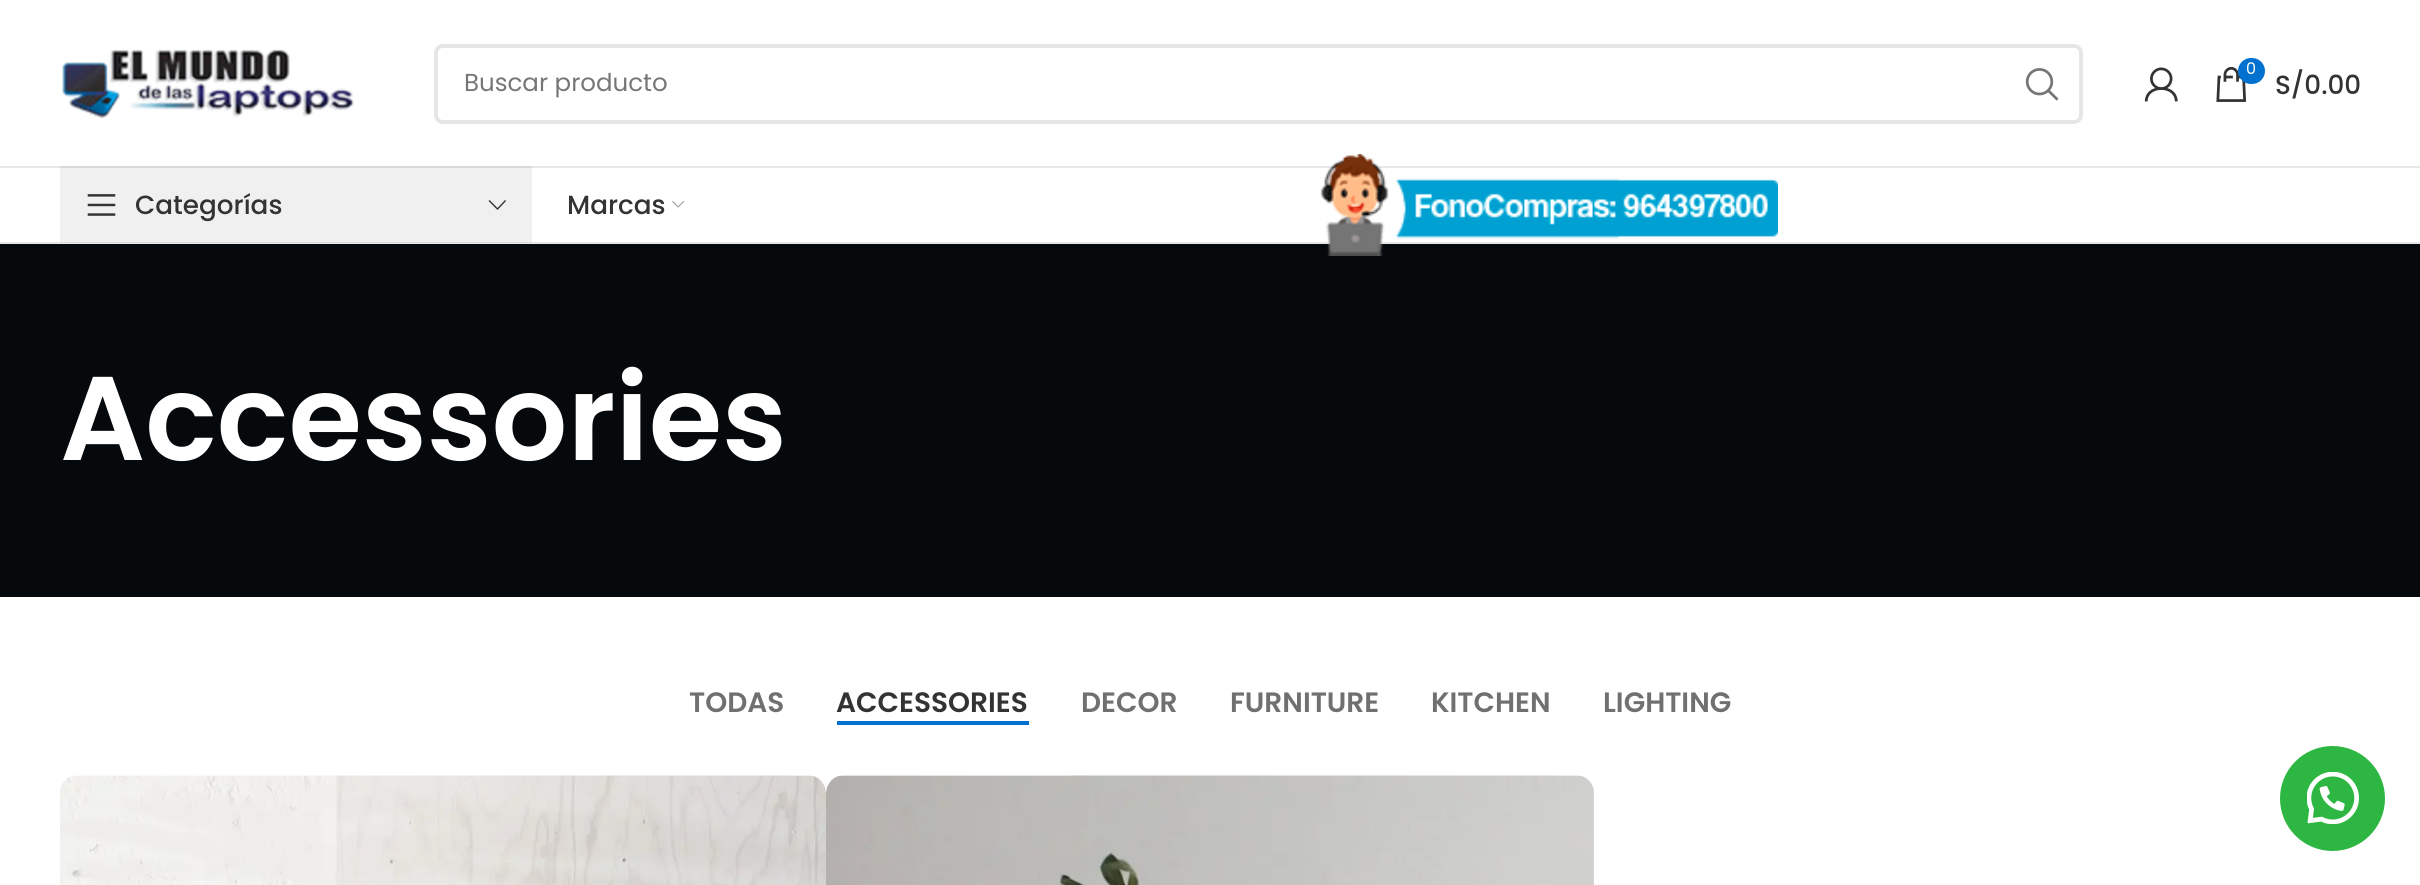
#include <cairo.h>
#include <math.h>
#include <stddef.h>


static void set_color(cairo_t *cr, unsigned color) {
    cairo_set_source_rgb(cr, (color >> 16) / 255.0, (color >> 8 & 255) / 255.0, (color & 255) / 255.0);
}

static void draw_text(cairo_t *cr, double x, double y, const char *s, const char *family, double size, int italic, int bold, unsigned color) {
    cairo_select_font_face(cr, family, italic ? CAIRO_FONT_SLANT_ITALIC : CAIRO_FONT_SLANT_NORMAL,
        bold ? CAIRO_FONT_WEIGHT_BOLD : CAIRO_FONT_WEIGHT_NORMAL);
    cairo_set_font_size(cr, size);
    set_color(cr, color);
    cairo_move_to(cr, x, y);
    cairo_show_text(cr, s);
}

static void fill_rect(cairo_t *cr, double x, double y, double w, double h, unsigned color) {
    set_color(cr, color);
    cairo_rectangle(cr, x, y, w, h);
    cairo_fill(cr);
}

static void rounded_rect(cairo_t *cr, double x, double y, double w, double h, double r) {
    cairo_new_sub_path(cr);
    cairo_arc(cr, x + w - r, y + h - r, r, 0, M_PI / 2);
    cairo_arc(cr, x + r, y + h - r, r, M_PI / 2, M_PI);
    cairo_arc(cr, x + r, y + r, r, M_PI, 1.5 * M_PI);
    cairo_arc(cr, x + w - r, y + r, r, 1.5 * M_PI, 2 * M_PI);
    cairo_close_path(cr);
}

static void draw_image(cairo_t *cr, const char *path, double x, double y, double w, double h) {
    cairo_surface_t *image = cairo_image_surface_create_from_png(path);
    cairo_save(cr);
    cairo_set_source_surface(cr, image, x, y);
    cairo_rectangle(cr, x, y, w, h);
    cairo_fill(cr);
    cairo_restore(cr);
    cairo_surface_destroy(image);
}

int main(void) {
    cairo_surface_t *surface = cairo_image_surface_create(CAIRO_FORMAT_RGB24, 2420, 885);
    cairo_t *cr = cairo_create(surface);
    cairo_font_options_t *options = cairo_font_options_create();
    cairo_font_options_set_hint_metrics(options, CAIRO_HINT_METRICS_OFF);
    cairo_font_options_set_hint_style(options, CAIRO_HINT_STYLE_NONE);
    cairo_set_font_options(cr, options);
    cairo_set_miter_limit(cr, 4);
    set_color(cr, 0xFFFFFF);
    cairo_paint(cr);
    fill_rect(cr, 0, 166, 2420, 2, 0xE8E8E8);
    draw_image(cr, "assets/img1.png", 62, 49, 293, 70);
    rounded_rect(cr, 436, 46, 1645, 76, 7);
    set_color(cr, 0xE6E6E6);
    cairo_set_line_width(cr, 4);
    cairo_stroke(cr);
    draw_text(cr, 464, 91, "Buscar producto", "Poppins", 24.5, 0, 0, 0x767676);
    draw_image(cr, "assets/img2.png", 2025, 68, 34, 33);
    draw_image(cr, "assets/img3.png", 2144, 67, 34, 35);
    draw_image(cr, "assets/img4.png", 2216, 66, 31, 36);
    set_color(cr, 0x0071CE);
    rounded_rect(cr, 2238, 58, 27, 26, 13);
    cairo_fill(cr);
    draw_text(cr, 2246, 74, "0", "Poppins", 16, 0, 0, 0xFFFFFF);
    draw_text(cr, 2275, 94, "S/0.00", "Poppins Medium", 26.25, 0, 0, 0x333333);
    fill_rect(cr, 0, 242, 2420, 2, 0xE8E8E8);
    cairo_set_source_rgba(cr, 0, 0, 0, 0.06);
    cairo_rectangle(cr, 60, 166, 472, 77);
    cairo_fill(cr);
    draw_image(cr, "assets/img5.png", 87, 194, 29, 22);
    draw_text(cr, 135, 214, "Categorías", "Poppins Medium", 26.25, 0, 0, 0x333333);
    cairo_new_path(cr);
    cairo_move_to(cr, 505, 200);
    cairo_line_to(cr, 497.5, 208);
    cairo_line_to(cr, 489.5, 200);
    cairo_line_to(cr, 488.5, 201);
    cairo_line_to(cr, 497.5, 210);
    cairo_line_to(cr, 506, 201);
    cairo_close_path(cr);
    cairo_fill(cr);
    draw_text(cr, 567, 214, "Marcas", "Poppins Medium", 26.25, 0, 0, 0x333333);
    draw_image(cr, "assets/img6.png", 672, 201, 13, 7);
    fill_rect(cr, 0, 244, 2420, 353, 0x05090C);
    draw_image(cr, "assets/img7.png", 1320, 154, 458, 102);
    draw_text(cr, 60, 460, "Accessories", "Poppins SemiBold", 119, 0, 0, 0xFFFFFF);
    draw_text(cr, 689, 712, "TODAS", "Poppins SemiBold", 28, 0, 0, 0x707070);
    draw_text(cr, 836, 712, "ACCESSORIES", "Poppins SemiBold", 28, 0, 0, 0x333333);
    fill_rect(cr, 837, 721, 192, 4, 0x0071CE);
    draw_text(cr, 1081, 712, "DECOR", "Poppins SemiBold", 28, 0, 0, 0x707070);
    draw_text(cr, 1230, 712, "FURNITURE", "Poppins SemiBold", 28, 0, 0, 0x707070);
    draw_text(cr, 1431, 712, "KITCHEN", "Poppins SemiBold", 28, 0, 0, 0x707070);
    draw_text(cr, 1603, 712, "LIGHTING", "Poppins SemiBold", 28, 0, 0, 0x707070);
    draw_image(cr, "assets/img8.png", 60, 775, 766, 110);
    draw_image(cr, "assets/img9.png", 826, 775, 768, 110);
    set_color(cr, 0x2DB742);
    cairo_arc(cr, 2332.5, 798.5, 52.5, 0, 2 * M_PI);
    cairo_fill(cr);
    draw_image(cr, "assets/img10.png", 2307, 772, 52, 52);
    cairo_surface_write_to_png(surface, "output.png");
    cairo_font_options_destroy(options);
    cairo_destroy(cr);
    cairo_surface_destroy(surface);
    return 0;
}
